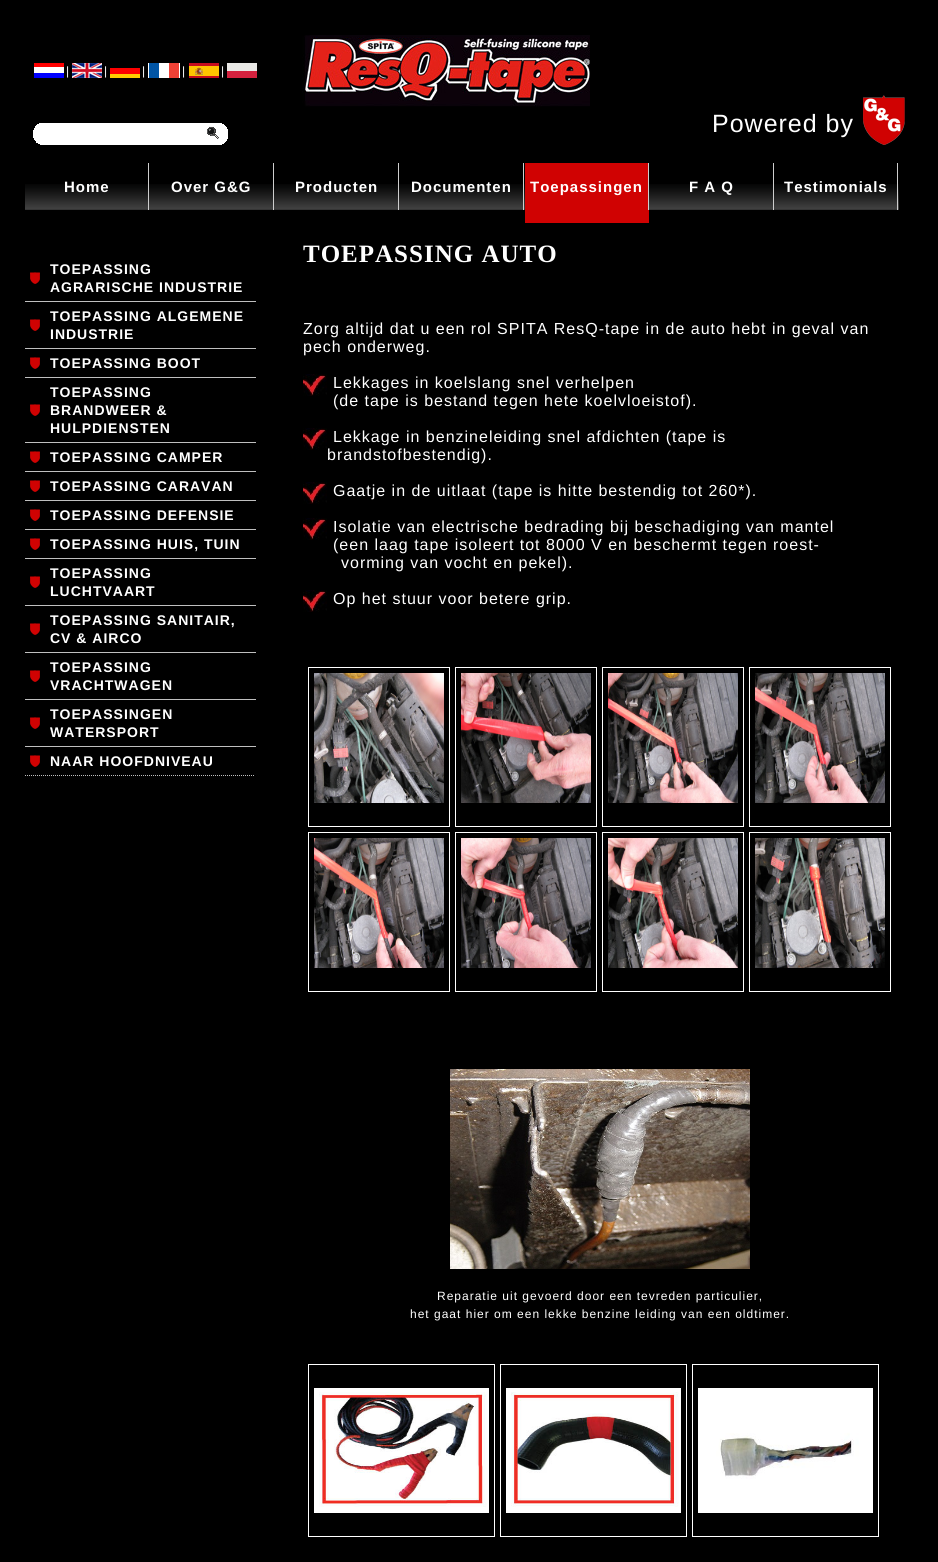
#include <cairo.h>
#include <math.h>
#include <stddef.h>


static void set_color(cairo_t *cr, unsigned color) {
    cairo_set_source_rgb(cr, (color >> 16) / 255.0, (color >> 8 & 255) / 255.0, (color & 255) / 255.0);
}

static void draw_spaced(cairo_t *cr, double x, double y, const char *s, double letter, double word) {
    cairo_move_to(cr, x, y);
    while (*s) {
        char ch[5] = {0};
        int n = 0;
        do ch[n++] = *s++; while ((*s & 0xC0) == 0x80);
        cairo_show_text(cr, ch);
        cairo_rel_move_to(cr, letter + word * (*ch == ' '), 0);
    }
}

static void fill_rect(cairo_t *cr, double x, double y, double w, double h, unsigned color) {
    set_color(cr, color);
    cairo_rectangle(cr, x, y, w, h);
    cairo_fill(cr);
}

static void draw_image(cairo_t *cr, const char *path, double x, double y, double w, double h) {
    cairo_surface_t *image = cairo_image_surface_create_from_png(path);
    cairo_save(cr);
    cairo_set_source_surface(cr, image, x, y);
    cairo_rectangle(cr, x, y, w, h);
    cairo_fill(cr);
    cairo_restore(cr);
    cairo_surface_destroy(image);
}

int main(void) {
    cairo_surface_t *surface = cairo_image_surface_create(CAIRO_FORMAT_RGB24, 938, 1562);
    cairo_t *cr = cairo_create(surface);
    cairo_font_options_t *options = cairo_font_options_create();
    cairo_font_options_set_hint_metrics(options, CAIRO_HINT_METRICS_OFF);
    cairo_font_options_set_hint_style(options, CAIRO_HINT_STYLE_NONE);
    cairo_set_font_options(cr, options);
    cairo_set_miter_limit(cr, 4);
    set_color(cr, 0x000000);
    cairo_paint(cr);
    draw_image(cr, "assets/img1.png", 34, 63, 30, 15);
    cairo_select_font_face(cr, "Liberation Sans", CAIRO_FONT_SLANT_NORMAL, CAIRO_FONT_WEIGHT_NORMAL);
    cairo_set_font_size(cr, 12);
    set_color(cr, 0xFFFFFF);
    draw_spaced(cr, 66, 75, "|", 1, 0);
    draw_image(cr, "assets/img2.png", 72, 63, 30, 15);
    draw_spaced(cr, 104, 75, "|", 1, 0);
    draw_image(cr, "assets/img3.png", 110, 68, 30, 10);
    draw_spaced(cr, 142, 75, "|", 1, 0);
    draw_image(cr, "assets/img4.png", 148, 63, 32, 15);
    draw_spaced(cr, 182, 75, "|", 1, 0);
    draw_image(cr, "assets/img5.png", 189, 63, 30, 15);
    draw_spaced(cr, 221, 75, "|", 1, 0);
    draw_image(cr, "assets/img6.png", 227, 63, 30, 15);
    draw_image(cr, "assets/img7.png", 302, 35, 288, 72);
    draw_image(cr, "assets/img8.png", 33, 123, 14, 22);
    fill_rect(cr, 47, 123, 154, 22, 0xFFFFFF);
    draw_image(cr, "assets/img9.png", 201, 123, 27, 22);
    cairo_set_font_size(cr, 25);
    draw_spaced(cr, 712, 132, "Powered by", 1, 0);
    draw_image(cr, "assets/img10.png", 863, 95, 42, 50);
    draw_image(cr, "assets/img11.png", 25, 184, 874, 26);
    fill_rect(cr, 148, 163, 1, 47, 0xCECECE);
    cairo_select_font_face(cr, "Liberation Sans", CAIRO_FONT_SLANT_NORMAL, CAIRO_FONT_WEIGHT_BOLD);
    cairo_set_font_size(cr, 15);
    set_color(cr, 0xFFFFFF);
    draw_spaced(cr, 64, 192, "Home", 1, 0);
    fill_rect(cr, 273, 163, 1, 47, 0xCECECE);
    set_color(cr, 0xFFFFFF);
    draw_spaced(cr, 171, 192, "Over G&G", 1, 0);
    fill_rect(cr, 398, 163, 1, 47, 0xCECECE);
    set_color(cr, 0xFFFFFF);
    draw_spaced(cr, 295, 192, "Producten", 1, 0);
    fill_rect(cr, 523, 163, 1, 47, 0xCECECE);
    set_color(cr, 0xFFFFFF);
    draw_spaced(cr, 411, 192, "Documenten", 1, 0);
    fill_rect(cr, 525, 163, 124, 60, 0xD00202);
    fill_rect(cr, 648, 163, 1, 47, 0xCECECE);
    set_color(cr, 0xFFFFFF);
    draw_spaced(cr, 530, 192, "Toepassingen", 1, 0);
    fill_rect(cr, 773, 163, 1, 47, 0xCECECE);
    set_color(cr, 0xFFFFFF);
    draw_spaced(cr, 689, 192, "F A Q", 1, 0);
    fill_rect(cr, 897, 163, 1, 47, 0xCECECE);
    set_color(cr, 0xFFFFFF);
    draw_spaced(cr, 784, 192, "Testimonials", 1, 0);
    draw_image(cr, "assets/img12.png", 30, 272, 10, 12);
    fill_rect(cr, 25, 301, 231, 1, 0xBFBFBF);
    cairo_set_font_size(cr, 14);
    set_color(cr, 0xFFFFFF);
    draw_spaced(cr, 50, 274, "TOEPASSING", 1, 0);
    draw_spaced(cr, 50, 292, "AGRARISCHE INDUSTRIE", 1, 0);
    draw_image(cr, "assets/img12.png", 30, 319, 10, 12);
    fill_rect(cr, 25, 348, 231, 1, 0xBFBFBF);
    set_color(cr, 0xFFFFFF);
    draw_spaced(cr, 50, 321, "TOEPASSING ALGEMENE", 1, 0);
    draw_spaced(cr, 50, 339, "INDUSTRIE", 1, 0);
    draw_image(cr, "assets/img12.png", 30, 357, 10, 12);
    fill_rect(cr, 25, 377, 231, 1, 0xBFBFBF);
    set_color(cr, 0xFFFFFF);
    draw_spaced(cr, 50, 368, "TOEPASSING BOOT", 1, 0);
    draw_image(cr, "assets/img12.png", 30, 404, 10, 12);
    fill_rect(cr, 25, 442, 231, 1, 0xBFBFBF);
    set_color(cr, 0xFFFFFF);
    draw_spaced(cr, 50, 397, "TOEPASSING", 1, 0);
    draw_spaced(cr, 50, 415, "BRANDWEER &", 1, 0);
    draw_spaced(cr, 50, 433, "HULPDIENSTEN", 1, 0);
    draw_image(cr, "assets/img12.png", 30, 451, 10, 12);
    fill_rect(cr, 25, 471, 231, 1, 0xBFBFBF);
    set_color(cr, 0xFFFFFF);
    draw_spaced(cr, 50, 462, "TOEPASSING CAMPER", 1, 0);
    draw_image(cr, "assets/img12.png", 30, 480, 10, 12);
    fill_rect(cr, 25, 500, 231, 1, 0xBFBFBF);
    set_color(cr, 0xFFFFFF);
    draw_spaced(cr, 50, 491, "TOEPASSING CARAVAN", 1, 0);
    draw_image(cr, "assets/img12.png", 30, 509, 10, 12);
    fill_rect(cr, 25, 529, 231, 1, 0xBFBFBF);
    set_color(cr, 0xFFFFFF);
    draw_spaced(cr, 50, 520, "TOEPASSING DEFENSIE", 1, 0);
    draw_image(cr, "assets/img12.png", 30, 538, 10, 12);
    fill_rect(cr, 25, 558, 231, 1, 0xBFBFBF);
    set_color(cr, 0xFFFFFF);
    draw_spaced(cr, 50, 549, "TOEPASSING HUIS, TUIN", 1, 0);
    draw_image(cr, "assets/img12.png", 30, 576, 10, 12);
    fill_rect(cr, 25, 605, 231, 1, 0xBFBFBF);
    set_color(cr, 0xFFFFFF);
    draw_spaced(cr, 50, 578, "TOEPASSING", 1, 0);
    draw_spaced(cr, 50, 596, "LUCHTVAART", 1, 0);
    draw_image(cr, "assets/img12.png", 30, 623, 10, 12);
    fill_rect(cr, 25, 652, 231, 1, 0xBFBFBF);
    set_color(cr, 0xFFFFFF);
    draw_spaced(cr, 50, 625, "TOEPASSING SANITAIR,", 1, 0);
    draw_spaced(cr, 50, 643, "CV & AIRCO", 1, 0);
    draw_image(cr, "assets/img12.png", 30, 670, 10, 12);
    fill_rect(cr, 25, 699, 231, 1, 0xBFBFBF);
    set_color(cr, 0xFFFFFF);
    draw_spaced(cr, 50, 672, "TOEPASSING", 1, 0);
    draw_spaced(cr, 50, 690, "VRACHTWAGEN", 1, 0);
    draw_image(cr, "assets/img12.png", 30, 717, 10, 12);
    fill_rect(cr, 25, 746, 231, 1, 0xBFBFBF);
    set_color(cr, 0xFFFFFF);
    draw_spaced(cr, 50, 719, "TOEPASSINGEN", 1, 0);
    draw_spaced(cr, 50, 737, "WATERSPORT", 1, 0);
    cairo_new_path(cr);
    cairo_move_to(cr, 25, 775.5);
    cairo_line_to(cr, 45, 775.5);
    set_color(cr, 0xBFBFBF);
    cairo_set_line_width(cr, 1);
    cairo_set_dash(cr, (double[]){1, 1}, 2, 0);
    cairo_stroke(cr);
    draw_image(cr, "assets/img12.png", 30, 755, 10, 12);
    cairo_new_path(cr);
    cairo_move_to(cr, 45, 775.5);
    cairo_line_to(cr, 255, 775.5);
    cairo_stroke(cr);
    set_color(cr, 0xFFFFFF);
    draw_spaced(cr, 50, 766, "NAAR HOOFDNIVEAU", 1, 0);
    cairo_select_font_face(cr, "Liberation Serif", CAIRO_FONT_SLANT_NORMAL, CAIRO_FONT_WEIGHT_BOLD);
    cairo_set_font_size(cr, 25);
    draw_spaced(cr, 303, 262, "TOEPASSING AUTO", 1, 0);
    cairo_select_font_face(cr, "Liberation Sans", CAIRO_FONT_SLANT_NORMAL, CAIRO_FONT_WEIGHT_NORMAL);
    cairo_set_font_size(cr, 16);
    draw_spaced(cr, 303, 334, "Zorg altijd dat u een rol SPITA ResQ-tape in de auto hebt in geval van", 1, 0);
    draw_spaced(cr, 303, 352, "pech onderweg.", 1, 0);
    draw_image(cr, "assets/img13.png", 303, 374, 24, 22);
    draw_spaced(cr, 333, 388, "Lekkages in koelslang snel verhelpen", 1, 0);
    draw_spaced(cr, 333, 406, "(de tape is bestand tegen hete koelvloeistof).", 1, 0);
    draw_image(cr, "assets/img13.png", 303, 428, 24, 22);
    draw_spaced(cr, 333, 442, "Lekkage in benzineleiding snel afdichten (tape is", 1, 0);
    draw_spaced(cr, 327, 460, "brandstofbestendig).", 1, 0);
    draw_image(cr, "assets/img13.png", 303, 482, 24, 22);
    draw_spaced(cr, 333, 496, "Gaatje in de uitlaat (tape is hitte bestendig tot 260*).", 1, 0);
    draw_image(cr, "assets/img13.png", 303, 518, 24, 22);
    draw_spaced(cr, 333, 532, "Isolatie van electrische bedrading bij beschadiging van mantel", 1, 0);
    draw_spaced(cr, 333, 550, "(een laag tape isoleert tot 8000 V en beschermt tegen roest-", 1, 0);
    draw_spaced(cr, 341, 568, "vorming van vocht en pekel).", 1, 0);
    draw_image(cr, "assets/img13.png", 303, 590, 24, 22);
    draw_spaced(cr, 333, 604, "Op het stuur voor betere grip.", 1, 0);
    cairo_rectangle(cr, 308.5, 667.5, 141, 159);
    cairo_set_dash(cr, NULL, 0, 0);
    cairo_stroke(cr);
    draw_image(cr, "assets/img14.png", 314, 673, 130, 130);
    cairo_rectangle(cr, 455.5, 667.5, 141, 159);
    cairo_stroke(cr);
    draw_image(cr, "assets/img15.png", 461, 673, 130, 130);
    cairo_rectangle(cr, 602.5, 667.5, 141, 159);
    cairo_stroke(cr);
    draw_image(cr, "assets/img16.png", 608, 673, 130, 130);
    cairo_rectangle(cr, 749.5, 667.5, 141, 159);
    cairo_stroke(cr);
    draw_image(cr, "assets/img17.png", 755, 673, 130, 130);
    cairo_rectangle(cr, 308.5, 832.5, 141, 159);
    cairo_stroke(cr);
    draw_image(cr, "assets/img18.png", 314, 838, 130, 130);
    cairo_rectangle(cr, 455.5, 832.5, 141, 159);
    cairo_stroke(cr);
    draw_image(cr, "assets/img19.png", 461, 838, 130, 130);
    cairo_rectangle(cr, 602.5, 832.5, 141, 159);
    cairo_stroke(cr);
    draw_image(cr, "assets/img20.png", 608, 838, 130, 130);
    cairo_rectangle(cr, 749.5, 832.5, 141, 159);
    cairo_stroke(cr);
    draw_image(cr, "assets/img21.png", 755, 838, 130, 130);
    draw_image(cr, "assets/img22.png", 450, 1069, 300, 200);
    cairo_set_font_size(cr, 12);
    draw_spaced(cr, 437, 1300, "Reparatie uit gevoerd door een tevreden particulier,", 1, 0);
    draw_spaced(cr, 410, 1318, "het gaat hier om een lekke benzine leiding van een oldtimer.", 1, 0);
    cairo_rectangle(cr, 308.5, 1364.5, 186, 172);
    cairo_stroke(cr);
    draw_image(cr, "assets/img23.png", 314, 1388, 175, 125);
    cairo_rectangle(cr, 500.5, 1364.5, 186, 172);
    cairo_stroke(cr);
    draw_image(cr, "assets/img24.png", 506, 1388, 175, 125);
    cairo_rectangle(cr, 692.5, 1364.5, 186, 172);
    cairo_stroke(cr);
    draw_image(cr, "assets/img25.png", 698, 1388, 175, 125);
    cairo_surface_write_to_png(surface, "output.png");
    cairo_font_options_destroy(options);
    cairo_destroy(cr);
    cairo_surface_destroy(surface);
    return 0;
}
